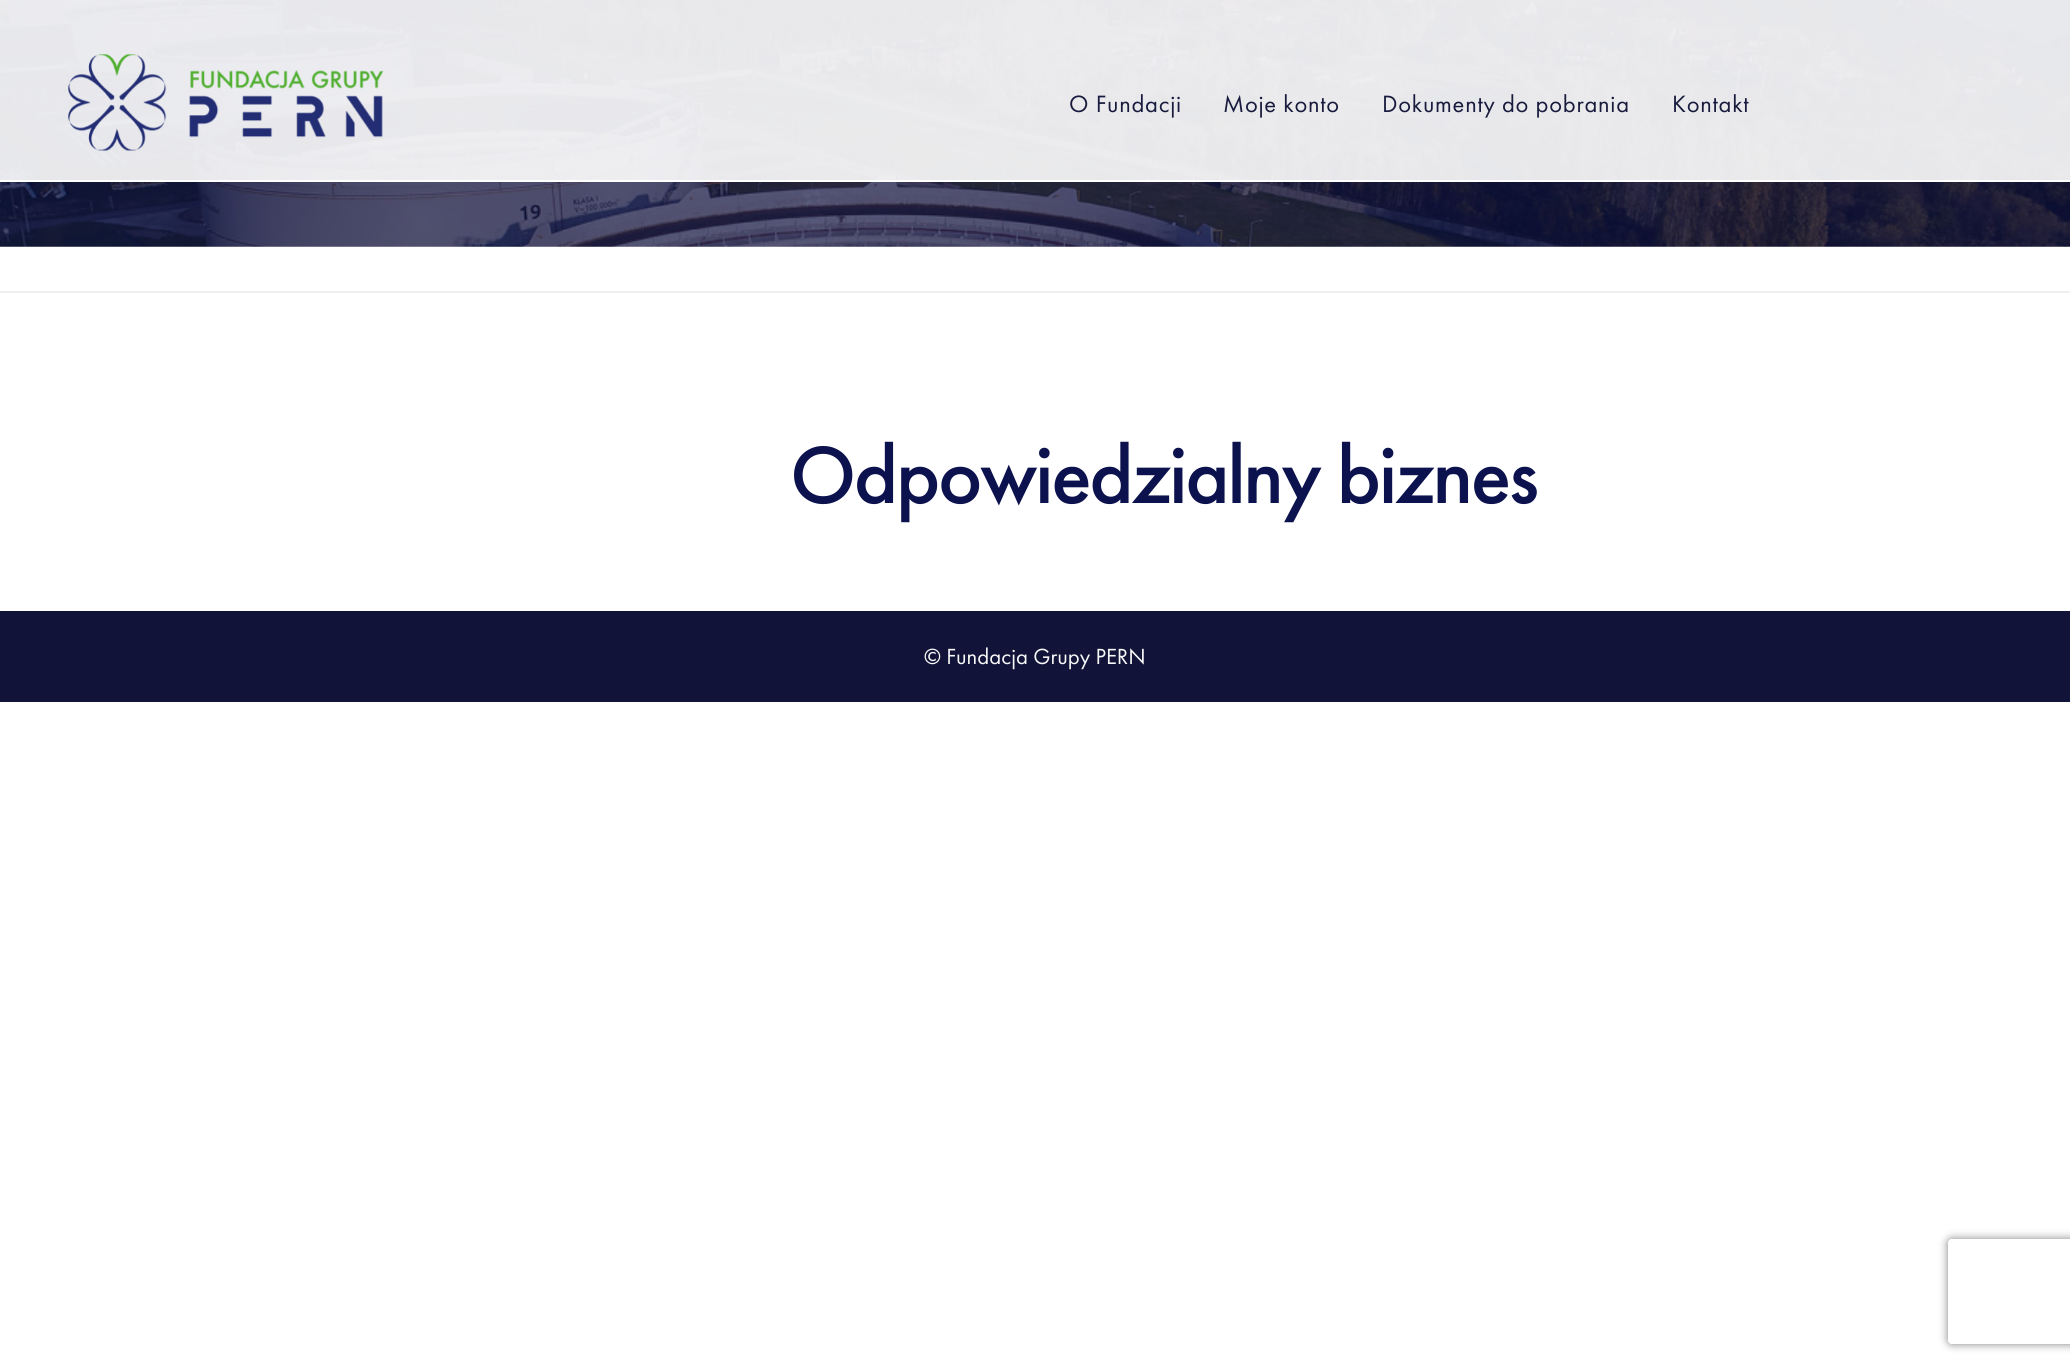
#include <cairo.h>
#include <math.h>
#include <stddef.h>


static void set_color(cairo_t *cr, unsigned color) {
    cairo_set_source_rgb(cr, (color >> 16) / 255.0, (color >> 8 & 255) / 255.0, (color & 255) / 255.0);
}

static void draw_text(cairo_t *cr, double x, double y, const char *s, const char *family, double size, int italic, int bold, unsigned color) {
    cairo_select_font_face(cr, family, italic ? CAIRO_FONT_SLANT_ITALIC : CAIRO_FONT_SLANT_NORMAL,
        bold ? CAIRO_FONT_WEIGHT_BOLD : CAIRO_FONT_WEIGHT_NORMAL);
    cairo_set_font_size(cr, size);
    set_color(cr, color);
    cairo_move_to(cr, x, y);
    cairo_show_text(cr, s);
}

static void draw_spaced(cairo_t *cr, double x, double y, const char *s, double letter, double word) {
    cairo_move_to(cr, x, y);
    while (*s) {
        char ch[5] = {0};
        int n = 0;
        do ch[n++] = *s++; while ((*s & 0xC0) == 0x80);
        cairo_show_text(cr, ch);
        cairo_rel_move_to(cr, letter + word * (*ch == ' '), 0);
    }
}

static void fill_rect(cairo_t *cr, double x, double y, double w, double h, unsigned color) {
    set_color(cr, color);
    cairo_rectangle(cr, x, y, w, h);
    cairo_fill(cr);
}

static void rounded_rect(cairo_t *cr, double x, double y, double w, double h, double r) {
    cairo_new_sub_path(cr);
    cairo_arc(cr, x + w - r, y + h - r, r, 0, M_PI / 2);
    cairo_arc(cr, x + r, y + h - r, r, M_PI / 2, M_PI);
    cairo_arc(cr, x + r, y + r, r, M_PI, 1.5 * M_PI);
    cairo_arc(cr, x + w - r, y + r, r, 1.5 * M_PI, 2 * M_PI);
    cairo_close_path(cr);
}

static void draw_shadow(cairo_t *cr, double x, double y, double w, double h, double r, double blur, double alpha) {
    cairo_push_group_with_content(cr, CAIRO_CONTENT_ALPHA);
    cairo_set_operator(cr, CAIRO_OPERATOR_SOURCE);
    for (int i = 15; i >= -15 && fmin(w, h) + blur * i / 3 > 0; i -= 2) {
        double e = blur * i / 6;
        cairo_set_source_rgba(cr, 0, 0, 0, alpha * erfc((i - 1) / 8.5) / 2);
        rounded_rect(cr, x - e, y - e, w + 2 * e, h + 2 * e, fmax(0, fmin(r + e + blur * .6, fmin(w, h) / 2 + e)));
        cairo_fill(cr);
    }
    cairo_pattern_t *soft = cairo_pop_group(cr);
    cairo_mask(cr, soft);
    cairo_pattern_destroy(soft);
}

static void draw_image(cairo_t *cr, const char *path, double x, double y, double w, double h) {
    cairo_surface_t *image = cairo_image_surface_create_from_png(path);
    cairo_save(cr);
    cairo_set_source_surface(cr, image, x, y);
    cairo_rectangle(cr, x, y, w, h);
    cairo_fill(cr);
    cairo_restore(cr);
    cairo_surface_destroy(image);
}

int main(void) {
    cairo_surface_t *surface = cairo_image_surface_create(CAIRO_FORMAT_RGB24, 2070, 1368);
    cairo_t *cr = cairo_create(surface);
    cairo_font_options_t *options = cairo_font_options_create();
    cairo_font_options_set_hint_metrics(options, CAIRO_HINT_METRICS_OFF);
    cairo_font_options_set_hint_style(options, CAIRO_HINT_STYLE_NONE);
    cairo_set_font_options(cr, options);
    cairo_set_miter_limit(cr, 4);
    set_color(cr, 0xFFFFFF);
    cairo_paint(cr);
    draw_image(cr, "assets/img1.png", 0, 0, 2070, 247);
    cairo_set_source_rgba(cr, 1, 1, 1, 0.9);
    cairo_rectangle(cr, 0, 0, 2070, 180);
    cairo_fill(cr);
    fill_rect(cr, 0, 180, 2070, 2, 0xFFFFFF);
    draw_image(cr, "assets/img2.png", 68, 54, 316, 97);
    cairo_select_font_face(cr, "Futura PT", CAIRO_FONT_SLANT_NORMAL, CAIRO_FONT_WEIGHT_NORMAL);
    cairo_set_font_size(cr, 24.5);
    set_color(cr, 0x181B3D);
    draw_spaced(cr, 1069, 112, "O Fundacji", 0.75, 0);
    draw_spaced(cr, 1223, 112, "Moje konto", 0.75, 0);
    draw_spaced(cr, 1382, 112, "Dokumenty do pobrania", 0.75, 0);
    draw_spaced(cr, 1672, 112, "Kontakt", 0.75, 0);
    fill_rect(cr, 0, 291, 2070, 2, 0xF0F0F0);
    cairo_select_font_face(cr, "Futura PT Medium", CAIRO_FONT_SLANT_NORMAL, CAIRO_FONT_WEIGHT_NORMAL);
    cairo_set_font_size(cr, 84);
    set_color(cr, 0x0C124E);
    draw_spaced(cr, 790, 503, "Odpowiedzialny biznes", -2.5, 0);
    fill_rect(cr, 0, 611, 2070, 91, 0x111438);
    draw_text(cr, 924, 664, "© Fundacja Grupy PERN", "Futura PT", 22.75, 0, 0, 0xF8F8F8);
    cairo_save(cr);
    cairo_set_fill_rule(cr, CAIRO_FILL_RULE_EVEN_ODD);
    cairo_new_path(cr);
    cairo_move_to(cr, 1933, 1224);
    cairo_line_to(cr, 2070, 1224);
    cairo_line_to(cr, 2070, 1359);
    cairo_line_to(cr, 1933, 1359);
    cairo_close_path(cr);
    cairo_move_to(cr, 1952, 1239);
    cairo_line_to(cr, 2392, 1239);
    cairo_curve_to(cr, 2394, 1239, 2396, 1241, 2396, 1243);
    cairo_line_to(cr, 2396, 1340);
    cairo_curve_to(cr, 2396, 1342, 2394, 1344, 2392, 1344);
    cairo_line_to(cr, 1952, 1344);
    cairo_curve_to(cr, 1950, 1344, 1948, 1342, 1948, 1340);
    cairo_line_to(cr, 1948, 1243);
    cairo_curve_to(cr, 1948, 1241, 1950, 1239, 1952, 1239);
    cairo_close_path(cr);
    cairo_clip(cr);
    set_color(cr, 0x808080);
    draw_shadow(cr, 1948, 1239, 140, 105, 4, 4.5, 1);
    cairo_restore(cr);
    cairo_surface_write_to_png(surface, "output.png");
    cairo_font_options_destroy(options);
    cairo_destroy(cr);
    cairo_surface_destroy(surface);
    return 0;
}
